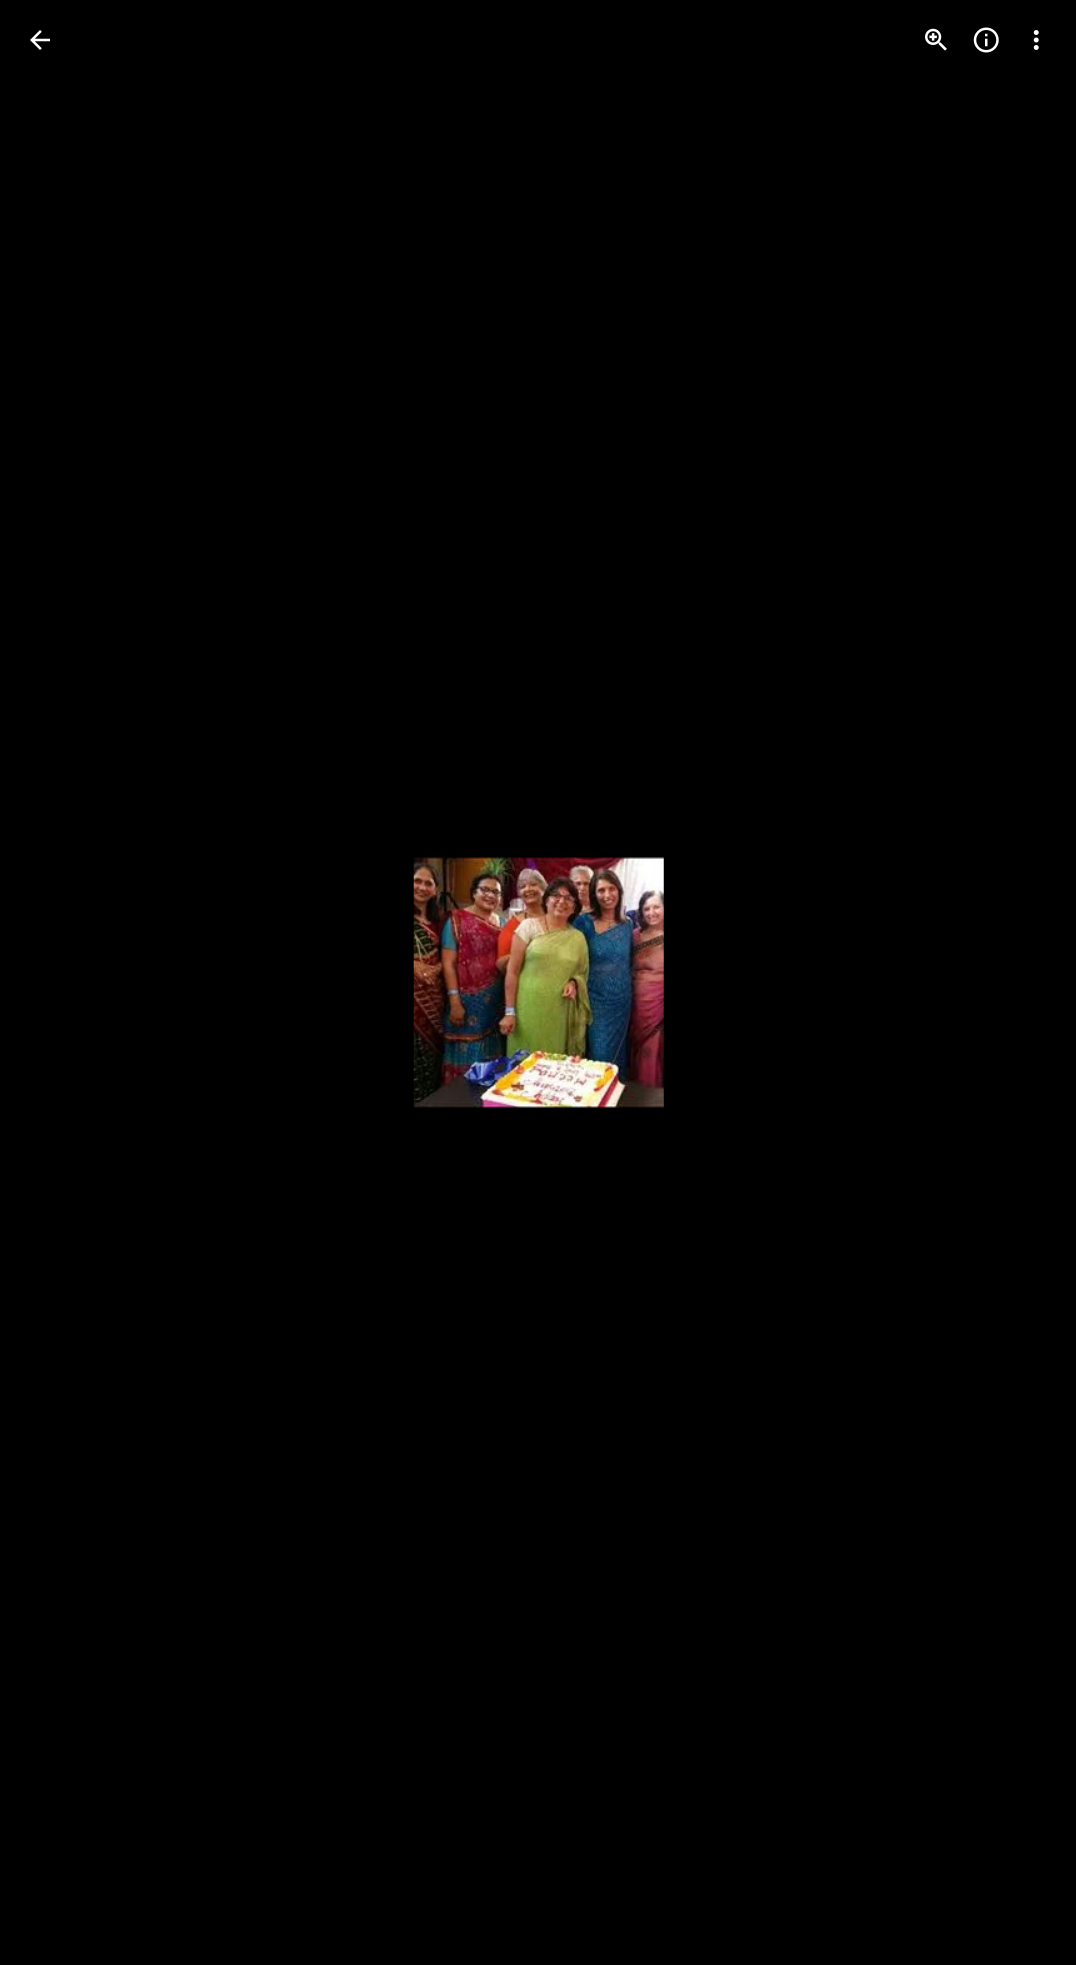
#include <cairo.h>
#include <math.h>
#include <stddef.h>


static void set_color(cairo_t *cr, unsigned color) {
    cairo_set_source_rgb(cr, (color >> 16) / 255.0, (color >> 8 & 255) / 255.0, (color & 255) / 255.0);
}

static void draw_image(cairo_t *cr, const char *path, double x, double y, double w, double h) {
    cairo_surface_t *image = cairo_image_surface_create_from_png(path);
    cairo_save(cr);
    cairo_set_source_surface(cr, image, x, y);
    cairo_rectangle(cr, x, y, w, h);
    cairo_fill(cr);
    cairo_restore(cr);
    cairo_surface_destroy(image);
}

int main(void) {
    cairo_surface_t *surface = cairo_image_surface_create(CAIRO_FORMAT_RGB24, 1076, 1965);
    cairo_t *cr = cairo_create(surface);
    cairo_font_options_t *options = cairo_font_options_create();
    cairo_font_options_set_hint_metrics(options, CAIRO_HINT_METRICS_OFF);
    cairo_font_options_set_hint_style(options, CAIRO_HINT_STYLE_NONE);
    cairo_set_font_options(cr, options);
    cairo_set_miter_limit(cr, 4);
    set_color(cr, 0x000000);
    cairo_paint(cr);
    draw_image(cr, "assets/img1.png", 30, 30, 20, 20);
    draw_image(cr, "assets/img2.png", 925, 28, 22, 23);
    draw_image(cr, "assets/img3.png", 973, 27, 26, 26);
    draw_image(cr, "assets/img4.png", 1033, 30, 6, 20);
    draw_image(cr, "assets/img5.png", 413, 857, 251, 251);
    cairo_surface_write_to_png(surface, "output.png");
    cairo_font_options_destroy(options);
    cairo_destroy(cr);
    cairo_surface_destroy(surface);
    return 0;
}
